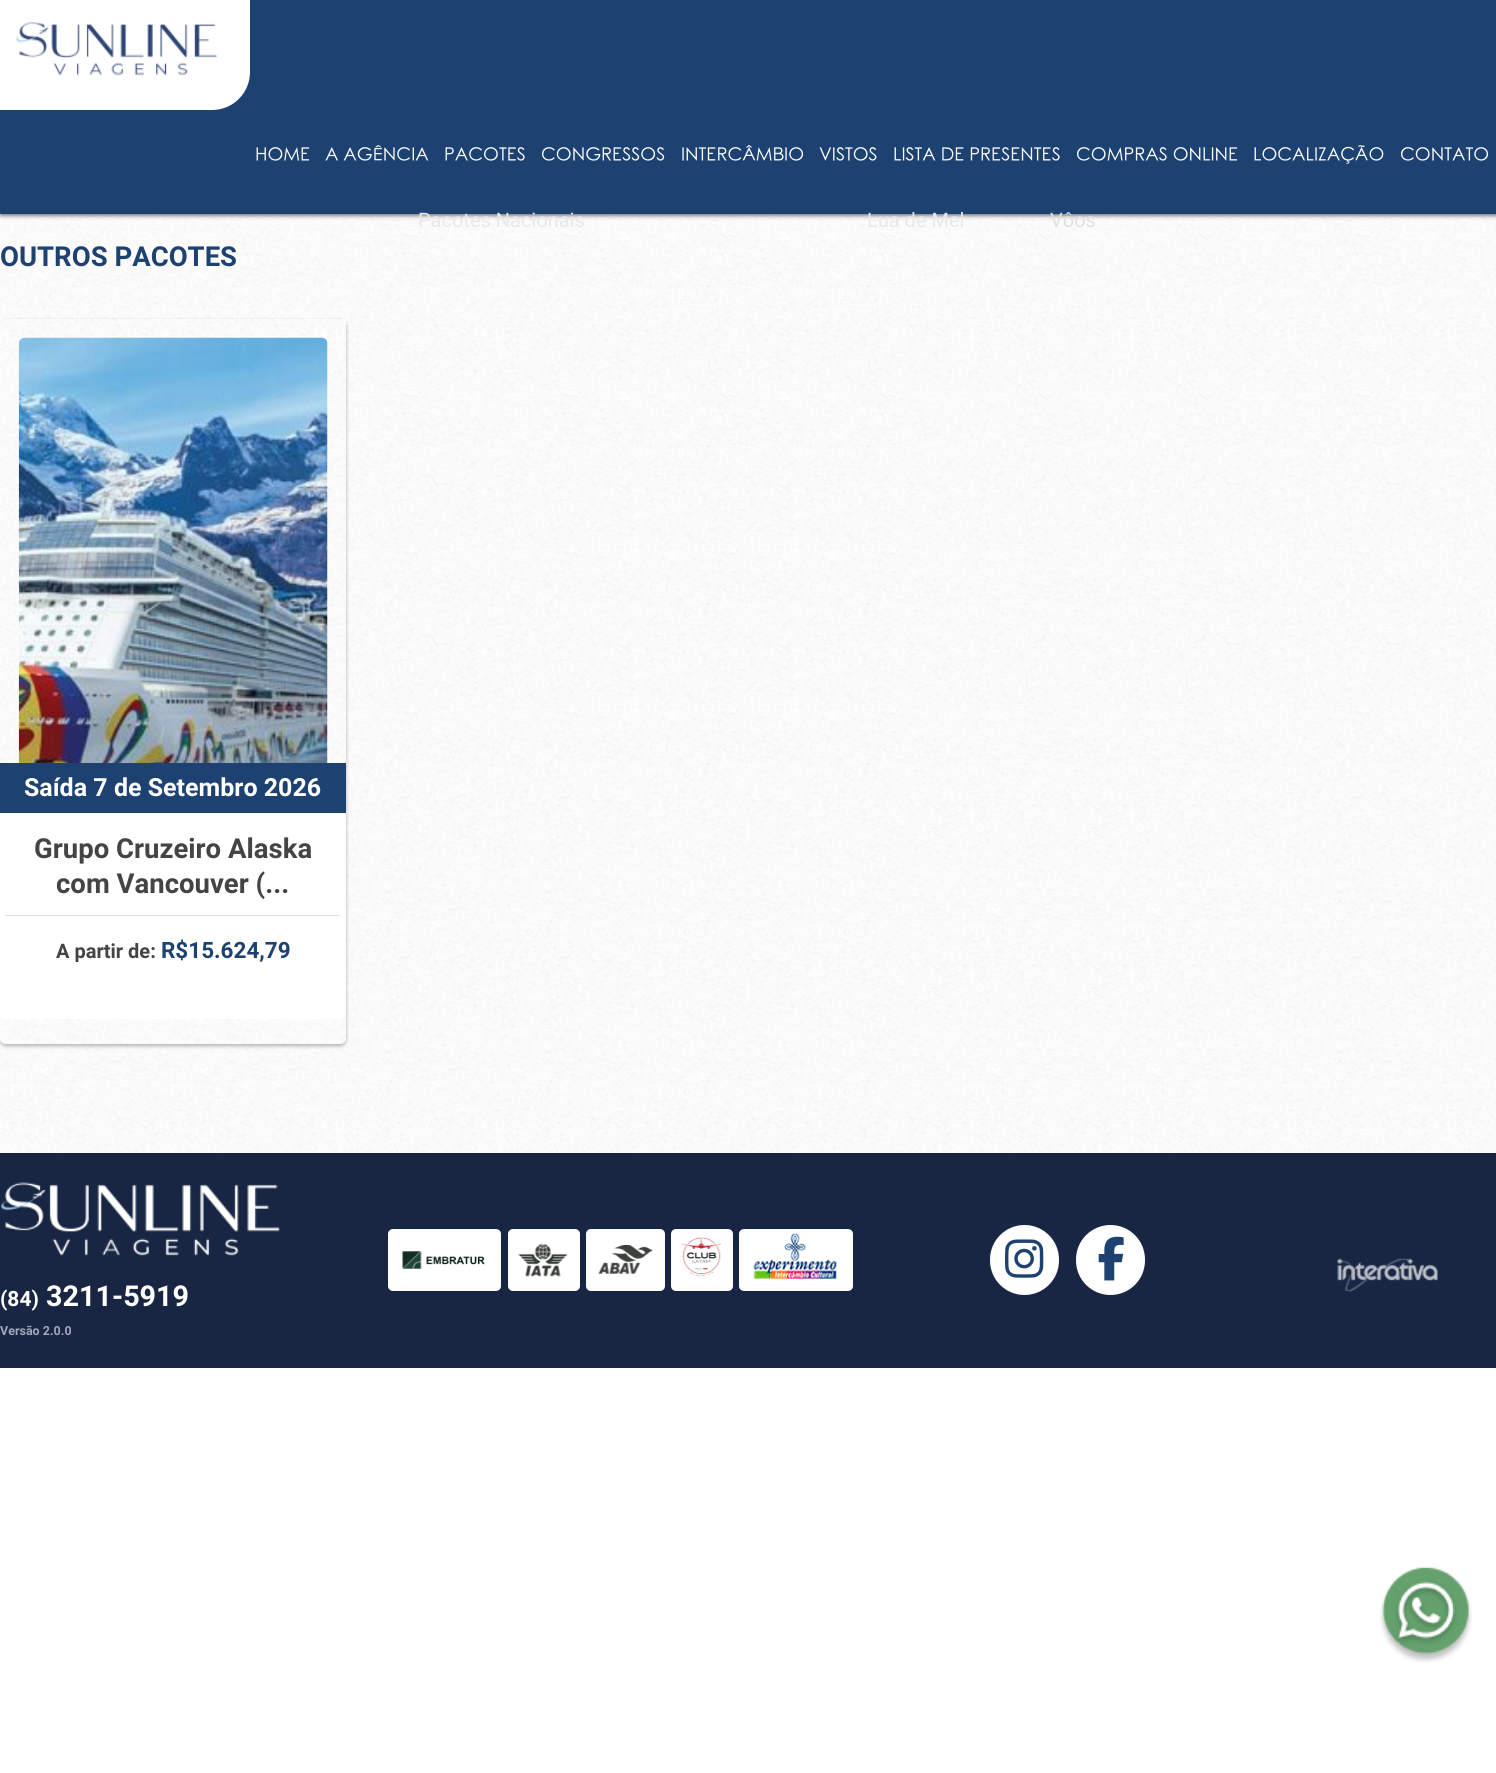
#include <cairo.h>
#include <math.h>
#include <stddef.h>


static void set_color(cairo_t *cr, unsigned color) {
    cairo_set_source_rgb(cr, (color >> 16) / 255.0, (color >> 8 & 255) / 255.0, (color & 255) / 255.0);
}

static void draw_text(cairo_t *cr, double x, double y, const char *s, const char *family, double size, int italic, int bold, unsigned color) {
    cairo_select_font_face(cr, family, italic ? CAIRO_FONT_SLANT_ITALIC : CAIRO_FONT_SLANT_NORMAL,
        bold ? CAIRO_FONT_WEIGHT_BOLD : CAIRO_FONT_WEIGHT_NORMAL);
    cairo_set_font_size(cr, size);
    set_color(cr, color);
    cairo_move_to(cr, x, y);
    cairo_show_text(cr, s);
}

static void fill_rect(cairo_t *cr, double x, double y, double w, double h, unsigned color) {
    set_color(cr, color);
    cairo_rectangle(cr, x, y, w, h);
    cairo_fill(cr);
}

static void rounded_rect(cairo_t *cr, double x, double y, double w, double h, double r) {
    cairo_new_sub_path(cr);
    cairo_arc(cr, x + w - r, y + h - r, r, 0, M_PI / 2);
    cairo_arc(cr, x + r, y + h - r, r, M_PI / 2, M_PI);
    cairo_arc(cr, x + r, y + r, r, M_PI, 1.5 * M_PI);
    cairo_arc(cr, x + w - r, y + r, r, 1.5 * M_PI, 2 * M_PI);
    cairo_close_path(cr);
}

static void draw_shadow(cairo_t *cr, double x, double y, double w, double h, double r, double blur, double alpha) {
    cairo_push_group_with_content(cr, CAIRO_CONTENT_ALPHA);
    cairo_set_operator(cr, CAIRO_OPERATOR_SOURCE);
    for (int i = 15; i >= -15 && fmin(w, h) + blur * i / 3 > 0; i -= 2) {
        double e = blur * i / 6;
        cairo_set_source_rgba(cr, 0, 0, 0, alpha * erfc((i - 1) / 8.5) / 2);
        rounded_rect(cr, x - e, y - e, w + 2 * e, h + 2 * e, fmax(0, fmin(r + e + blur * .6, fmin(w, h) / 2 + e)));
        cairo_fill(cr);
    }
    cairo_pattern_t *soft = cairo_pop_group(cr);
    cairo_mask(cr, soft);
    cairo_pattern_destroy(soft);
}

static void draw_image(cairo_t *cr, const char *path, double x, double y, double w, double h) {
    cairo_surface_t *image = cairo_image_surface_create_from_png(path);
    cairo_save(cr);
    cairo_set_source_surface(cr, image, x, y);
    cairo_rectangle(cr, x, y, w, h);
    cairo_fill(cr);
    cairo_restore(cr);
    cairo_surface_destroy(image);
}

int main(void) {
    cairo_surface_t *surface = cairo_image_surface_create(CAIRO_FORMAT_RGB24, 1496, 1773);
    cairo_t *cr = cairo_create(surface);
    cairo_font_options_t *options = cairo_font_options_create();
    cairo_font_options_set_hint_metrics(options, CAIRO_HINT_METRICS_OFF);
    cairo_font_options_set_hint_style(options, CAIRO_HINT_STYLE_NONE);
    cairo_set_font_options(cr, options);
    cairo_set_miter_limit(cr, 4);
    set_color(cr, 0xFFFFFF);
    cairo_paint(cr);
    draw_image(cr, "assets/img2.png", 0, 214, 1496, 939);
    set_color(cr, 0x000000);
    draw_shadow(cr, 1, 1, 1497, 214, 0, 2.5, 0.7);
    fill_rect(cr, 0, 0, 1496, 214, 0x1D4272);
    set_color(cr, 0xFFFFFF);
    cairo_new_path(cr);
    cairo_move_to(cr, -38, -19);
    cairo_line_to(cr, 250, -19);
    cairo_line_to(cr, 250, 72);
    cairo_curve_to(cr, 250, 93, 233, 110, 212, 110);
    cairo_line_to(cr, -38, 110);
    cairo_close_path(cr);
    cairo_fill(cr);
    draw_image(cr, "assets/img1.png", 15, 22, 203, 54);
    draw_text(cr, 255, 161, "HOME", "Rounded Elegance", 18.1, 0, 0, 0xFFFFFF);
    draw_text(cr, 325, 161, "A AGÊNCIA", "Rounded Elegance", 18.1, 0, 0, 0xFFFFFF);
    draw_text(cr, 444, 161, "PACOTES", "Rounded Elegance", 18.1, 0, 0, 0xFFFFFF);
    draw_text(cr, 418, 227, "Pacotes Nacionais", "Roboto", 20, 0, 0, 0xE6E8EA);
    draw_text(cr, 541, 161, "CONGRESSOS", "Rounded Elegance", 18.1, 0, 0, 0xFFFFFF);
    draw_text(cr, 681, 161, "INTERCÂMBIO", "Rounded Elegance", 18.1, 0, 0, 0xFFFFFF);
    draw_text(cr, 819, 161, "VISTOS", "Rounded Elegance", 18.1, 0, 0, 0xFFFFFF);
    draw_text(cr, 893, 161, "LISTA DE PRESENTES", "Rounded Elegance", 18.1, 0, 0, 0xFFFFFF);
    draw_text(cr, 867, 227, "Lua de Mel", "Roboto", 20, 0, 0, 0xE6E8EA);
    draw_text(cr, 1076, 161, "COMPRAS ONLINE", "Rounded Elegance", 18.1, 0, 0, 0xFFFFFF);
    draw_text(cr, 1050, 227, "Vôos", "Roboto", 20, 0, 0, 0xDEE1E4);
    draw_text(cr, 1253, 161, "LOCALIZAÇÃO", "Rounded Elegance", 18.1, 0, 0, 0xFFFFFF);
    draw_text(cr, 1400, 161, "CONTATO", "Rounded Elegance", 18.1, 0, 0, 0xFFFFFF);
    draw_text(cr, 0, 266, "OUTROS PACOTES", "Roboto", 27.5, 0, 1, 0x1D4272);
    cairo_save(cr);
    cairo_set_fill_rule(cr, CAIRO_FILL_RULE_EVEN_ODD);
    cairo_new_path(cr);
    cairo_move_to(cr, 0, 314);
    cairo_line_to(cr, 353, 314);
    cairo_line_to(cr, 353, 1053);
    cairo_line_to(cr, 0, 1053);
    cairo_close_path(cr);
    cairo_move_to(cr, 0, 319);
    cairo_line_to(cr, 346, 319);
    cairo_line_to(cr, 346, 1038);
    cairo_curve_to(cr, 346, 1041.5, 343.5, 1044, 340, 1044);
    cairo_line_to(cr, 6, 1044);
    cairo_curve_to(cr, 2.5, 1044, 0, 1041.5, 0, 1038);
    cairo_close_path(cr);
    cairo_clip(cr);
    set_color(cr, 0x000000);
    draw_shadow(cr, 0, 321, 346, 725, 6, 2, 0.3);
    cairo_restore(cr);
    draw_image(cr, "assets/img3.png", 18, 337, 310, 426);
    fill_rect(cr, 0, 763, 346, 50, 0x1D4272);
    draw_text(cr, 24, 796, "Saída 7 de Setembro 2026", "Roboto", 25, 0, 1, 0xFFFFFF);
    cairo_new_path(cr);
    cairo_move_to(cr, 0, 813);
    cairo_line_to(cr, 346, 813);
    cairo_line_to(cr, 346, 1013);
    cairo_curve_to(cr, 346, 1016.5, 343.5, 1019, 340, 1019);
    cairo_line_to(cr, 6, 1019);
    cairo_curve_to(cr, 2.5, 1019, 0, 1016.5, 0, 1013);
    cairo_close_path(cr);
    cairo_fill(cr);
    draw_text(cr, 34, 858, "Grupo Cruzeiro Alaska", "Roboto", 27.5, 0, 1, 0x444444);
    draw_text(cr, 56, 893, "com Vancouver (...", "Roboto", 27.5, 0, 1, 0x444444);
    fill_rect(cr, 6, 915, 334, 1, 0xDEDEDE);
    draw_text(cr, 56, 958, "A partir de:", "Roboto", 20, 0, 1, 0x444444);
    draw_text(cr, 161, 958, "R$15.624,79", "Roboto", 22.5, 0, 1, 0x1D4272);
    fill_rect(cr, 0, 1153, 1496, 215, 0x192643);
    set_color(cr, 0xFFFFFF);
    rounded_rect(cr, 388, 1229, 113, 62, 5);
    cairo_fill(cr);
    draw_image(cr, "assets/img4.png", 402, 1251, 83, 18);
    rounded_rect(cr, 508, 1229, 72, 62, 5);
    cairo_fill(cr);
    draw_image(cr, "assets/img5.png", 518, 1243, 50, 34);
    rounded_rect(cr, 586, 1229, 79, 62, 5);
    cairo_fill(cr);
    draw_image(cr, "assets/img6.png", 598, 1245, 55, 29);
    rounded_rect(cr, 671, 1229, 62, 62, 5);
    cairo_fill(cr);
    draw_image(cr, "assets/img7.png", 681, 1237, 41, 39);
    rounded_rect(cr, 739, 1229, 114, 62, 5);
    cairo_fill(cr);
    draw_image(cr, "assets/img8.png", 753, 1233, 84, 46);
    rounded_rect(cr, 990, 1225, 69, 70, 34.5);
    cairo_fill(cr);
    draw_image(cr, "assets/img9.png", 1005, 1239, 39, 39);
    rounded_rect(cr, 1076, 1225, 69, 70, 34.5);
    cairo_fill(cr);
    draw_image(cr, "assets/img10.png", 1098, 1236, 26, 45);
    draw_image(cr, "assets/img11.png", 1337, 1258, 101, 34);
    draw_image(cr, "assets/img12.png", 1, 1182, 280, 74);
    draw_text(cr, 0, 1306, "(84)", "Roboto", 21, 0, 1, 0xFFFFFF);
    draw_text(cr, 46, 1306, "3211-5919", "Roboto", 28.75, 0, 1, 0xFFFFFF);
    draw_text(cr, 0, 1335, "Versão 2.0.0", "Roboto", 12.5, 0, 1, 0xA4A6BA);
    draw_image(cr, "assets/img13.png", 1380, 1567, 92, 96);
    cairo_surface_write_to_png(surface, "output.png");
    cairo_font_options_destroy(options);
    cairo_destroy(cr);
    cairo_surface_destroy(surface);
    return 0;
}
